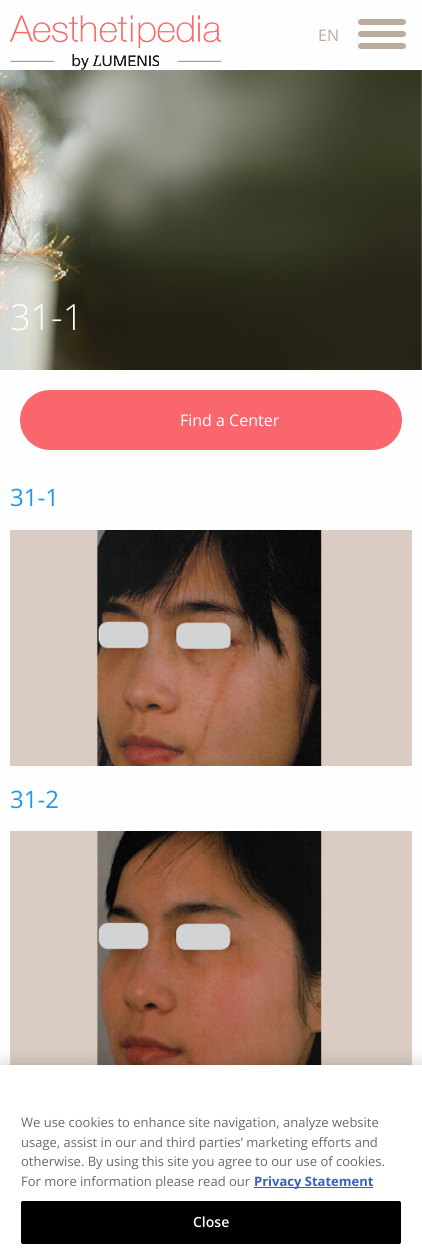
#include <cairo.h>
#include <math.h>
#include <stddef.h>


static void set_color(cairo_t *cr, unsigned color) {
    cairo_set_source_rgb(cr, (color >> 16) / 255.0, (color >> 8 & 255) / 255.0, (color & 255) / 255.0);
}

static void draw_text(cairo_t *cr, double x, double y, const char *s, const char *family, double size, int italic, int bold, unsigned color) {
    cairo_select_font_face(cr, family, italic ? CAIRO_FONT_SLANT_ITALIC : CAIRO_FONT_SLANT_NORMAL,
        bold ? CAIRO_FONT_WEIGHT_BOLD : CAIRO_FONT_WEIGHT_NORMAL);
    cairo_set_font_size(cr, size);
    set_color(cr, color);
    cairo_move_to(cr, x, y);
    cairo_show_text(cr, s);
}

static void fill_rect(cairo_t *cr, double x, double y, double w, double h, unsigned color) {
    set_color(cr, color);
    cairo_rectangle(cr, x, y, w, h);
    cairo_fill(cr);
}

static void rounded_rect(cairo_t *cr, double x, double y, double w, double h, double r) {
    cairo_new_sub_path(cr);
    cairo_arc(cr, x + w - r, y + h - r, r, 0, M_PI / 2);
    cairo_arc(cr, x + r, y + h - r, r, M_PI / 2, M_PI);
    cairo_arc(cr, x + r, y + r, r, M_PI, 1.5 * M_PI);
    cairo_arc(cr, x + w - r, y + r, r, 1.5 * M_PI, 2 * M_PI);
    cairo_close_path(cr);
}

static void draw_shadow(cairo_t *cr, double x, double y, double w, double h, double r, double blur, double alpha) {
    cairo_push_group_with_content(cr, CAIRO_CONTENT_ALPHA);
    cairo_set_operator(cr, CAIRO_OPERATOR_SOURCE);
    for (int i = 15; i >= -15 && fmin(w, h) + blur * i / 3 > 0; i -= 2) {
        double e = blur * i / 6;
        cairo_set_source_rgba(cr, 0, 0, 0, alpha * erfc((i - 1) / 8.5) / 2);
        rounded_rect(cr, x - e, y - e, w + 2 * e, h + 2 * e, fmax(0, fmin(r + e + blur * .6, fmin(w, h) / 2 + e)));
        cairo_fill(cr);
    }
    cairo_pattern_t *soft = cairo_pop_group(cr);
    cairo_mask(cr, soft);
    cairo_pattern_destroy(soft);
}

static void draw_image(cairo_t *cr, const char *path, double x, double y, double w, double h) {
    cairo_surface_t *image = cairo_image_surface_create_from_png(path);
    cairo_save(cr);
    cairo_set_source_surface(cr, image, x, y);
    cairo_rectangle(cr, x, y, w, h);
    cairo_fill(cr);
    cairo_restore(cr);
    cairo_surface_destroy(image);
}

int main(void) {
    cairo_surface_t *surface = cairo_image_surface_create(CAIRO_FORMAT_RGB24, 422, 1260);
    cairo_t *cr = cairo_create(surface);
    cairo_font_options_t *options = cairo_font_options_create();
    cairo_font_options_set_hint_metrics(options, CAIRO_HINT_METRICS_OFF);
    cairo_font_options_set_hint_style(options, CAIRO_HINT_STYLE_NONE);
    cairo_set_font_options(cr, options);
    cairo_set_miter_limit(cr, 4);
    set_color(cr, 0xFEFEFE);
    cairo_paint(cr);
    draw_image(cr, "assets/img1.png", 10, 15, 211, 55);
    draw_text(cr, 318, 41, "EN", "Open Sans", 16, 0, 0, 0xBBAB9D);
    rounded_rect(cr, 358, 19, 48, 6, 3);
    cairo_fill(cr);
    rounded_rect(cr, 358, 31, 48, 6, 3);
    cairo_fill(cr);
    rounded_rect(cr, 358, 43, 48, 6, 3);
    cairo_fill(cr);
    draw_image(cr, "assets/img2.png", 0, 70, 422, 300);
    draw_text(cr, 10, 330, "31-1", "Open Sans Light", 36, 0, 0, 0xFFFFFF);
    set_color(cr, 0xF9666C);
    rounded_rect(cr, 20, 390, 382, 60, 30);
    cairo_fill(cr);
    draw_text(cr, 180, 426, "Find a Center", "Open Sans", 16, 0, 0, 0xFFFFFF);
    draw_text(cr, 10, 506, "31-1", "Open Sans", 24, 0, 0, 0x2199E8);
    draw_image(cr, "assets/img3.png", 10, 530, 402, 236);
    draw_text(cr, 10, 808, "31-2", "Open Sans", 24, 0, 0, 0x2199E8);
    draw_image(cr, "assets/img4.png", 10, 831, 402, 234);
    set_color(cr, 0x000000);
    draw_shadow(cr, 0, 1065, 422, 195, 0, 9, 0.2);
    fill_rect(cr, 0, 1065, 422, 195, 0xFFFFFF);
    draw_text(cr, 21, 1127, "We use cookies to enhance site navigation, analyze website", "Open Sans", 13, 0, 0, 0x696969);
    draw_text(cr, 21, 1147, "usage, assist in our and third parties’ marketing efforts and", "Open Sans", 13, 0, 0, 0x696969);
    draw_text(cr, 21, 1166, "otherwise. By using this site you agree to our use of cookies.", "Open Sans", 13, 0, 0, 0x696969);
    draw_text(cr, 21, 1186, "For more information please read our", "Open Sans", 13, 0, 0, 0x696969);
    fill_rect(cr, 254, 1187, 119, 1, 0x3860BE);
    draw_text(cr, 254, 1186, "Privacy Statement", "Open Sans", 13, 0, 1, 0x3860BE);
    set_color(cr, 0x000000);
    rounded_rect(cr, 21.5, 1201.5, 379, 42, 1.5);
    cairo_fill_preserve(cr);
    cairo_set_line_width(cr, 1);
    cairo_stroke(cr);
    draw_text(cr, 193, 1227, "Close", "Open Sans SemiBold", 14, 0, 0, 0xFFFFFF);
    cairo_surface_write_to_png(surface, "output.png");
    cairo_font_options_destroy(options);
    cairo_destroy(cr);
    cairo_surface_destroy(surface);
    return 0;
}
